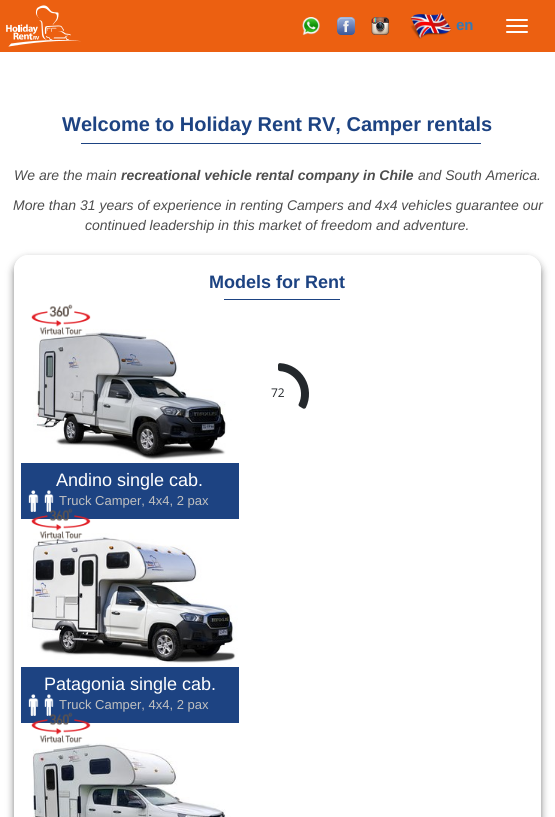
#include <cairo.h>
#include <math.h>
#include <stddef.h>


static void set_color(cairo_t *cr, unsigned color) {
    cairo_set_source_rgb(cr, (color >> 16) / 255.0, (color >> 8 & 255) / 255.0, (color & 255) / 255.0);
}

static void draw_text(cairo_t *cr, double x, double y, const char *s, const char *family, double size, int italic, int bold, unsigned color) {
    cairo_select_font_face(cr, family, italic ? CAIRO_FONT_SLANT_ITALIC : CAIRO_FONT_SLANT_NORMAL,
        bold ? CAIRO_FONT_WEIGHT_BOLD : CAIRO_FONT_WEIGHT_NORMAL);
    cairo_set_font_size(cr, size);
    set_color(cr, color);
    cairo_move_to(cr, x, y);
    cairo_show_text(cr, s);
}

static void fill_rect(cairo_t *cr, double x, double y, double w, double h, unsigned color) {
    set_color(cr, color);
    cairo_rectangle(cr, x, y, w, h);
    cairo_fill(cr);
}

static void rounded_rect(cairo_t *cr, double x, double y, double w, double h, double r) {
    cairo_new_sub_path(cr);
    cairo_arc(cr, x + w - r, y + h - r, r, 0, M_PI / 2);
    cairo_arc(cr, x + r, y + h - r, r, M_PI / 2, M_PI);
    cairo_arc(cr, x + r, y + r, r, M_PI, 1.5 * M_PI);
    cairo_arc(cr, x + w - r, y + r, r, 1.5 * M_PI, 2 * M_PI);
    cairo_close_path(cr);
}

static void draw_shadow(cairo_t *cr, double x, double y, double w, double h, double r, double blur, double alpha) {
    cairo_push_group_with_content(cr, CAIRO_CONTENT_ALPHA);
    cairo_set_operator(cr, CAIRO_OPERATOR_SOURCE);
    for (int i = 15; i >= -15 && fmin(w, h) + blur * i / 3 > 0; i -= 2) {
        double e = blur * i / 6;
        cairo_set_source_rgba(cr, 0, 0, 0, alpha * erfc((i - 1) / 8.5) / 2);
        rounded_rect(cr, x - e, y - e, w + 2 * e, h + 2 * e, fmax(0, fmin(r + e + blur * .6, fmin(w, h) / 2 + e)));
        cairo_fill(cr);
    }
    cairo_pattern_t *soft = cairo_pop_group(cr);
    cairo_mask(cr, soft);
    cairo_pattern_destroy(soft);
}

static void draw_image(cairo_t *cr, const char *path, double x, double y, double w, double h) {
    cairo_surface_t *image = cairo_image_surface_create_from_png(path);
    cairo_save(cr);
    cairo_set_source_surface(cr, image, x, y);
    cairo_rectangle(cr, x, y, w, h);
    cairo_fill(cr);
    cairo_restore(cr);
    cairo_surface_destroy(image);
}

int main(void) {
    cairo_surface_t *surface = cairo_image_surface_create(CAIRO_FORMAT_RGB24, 555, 817);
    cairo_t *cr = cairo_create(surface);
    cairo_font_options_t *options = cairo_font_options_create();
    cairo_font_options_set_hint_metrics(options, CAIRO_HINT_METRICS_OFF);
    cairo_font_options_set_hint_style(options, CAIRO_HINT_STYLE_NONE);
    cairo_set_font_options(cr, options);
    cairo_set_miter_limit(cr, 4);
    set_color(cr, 0xFFFFFF);
    cairo_paint(cr);
    fill_rect(cr, 0, 0, 555, 52, 0xEC6011);
    draw_image(cr, "assets/img1.png", 6, 5, 75, 42);
    draw_image(cr, "assets/img2.png", 302, 17, 18, 18);
    draw_image(cr, "assets/img3.png", 337, 17, 18, 18);
    draw_image(cr, "assets/img4.png", 371, 17, 18, 18);
    draw_image(cr, "assets/img5.png", 410, 12, 42, 27);
    draw_text(cr, 456, 30, "en", "Liberation Sans", 15, 0, 1, 0x337AB7);
    set_color(cr, 0xFFFFFF);
    rounded_rect(cr, 506, 19, 22, 2, 1);
    cairo_fill(cr);
    rounded_rect(cr, 506, 25, 22, 2, 1);
    cairo_fill(cr);
    rounded_rect(cr, 506, 31, 22, 2, 1);
    cairo_fill(cr);
    draw_text(cr, 62, 131, "Welcome to Holiday Rent RV, Camper rentals", "Liberation Sans", 20, 0, 1, 0x1D4382);
    fill_rect(cr, 81, 143, 400, 1, 0x1D4382);
    draw_text(cr, 14, 180, "We are the main", "Liberation Sans", 14, 1, 0, 0x4D4D4D);
    draw_text(cr, 121, 180, "recreational vehicle rental company in Chile", "Liberation Sans", 14, 1, 1, 0x4D4D4D);
    draw_text(cr, 418, 180, "and South America.", "Liberation Sans", 14, 1, 0, 0x4D4D4D);
    draw_text(cr, 13, 210, "More than 31 years of experience in renting Campers and 4x4 vehicles guarantee our", "Liberation Sans", 14, 1, 0, 0x4D4D4D);
    draw_text(cr, 85, 230, "continued leadership in this market of freedom and adventure.", "Liberation Sans", 14, 1, 0, 0x4D4D4D);
    cairo_save(cr);
    cairo_set_fill_rule(cr, CAIRO_FILL_RULE_EVEN_ODD);
    cairo_new_path(cr);
    cairo_move_to(cr, 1, 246);
    cairo_line_to(cr, 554, 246);
    cairo_line_to(cr, 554, 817);
    cairo_line_to(cr, 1, 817);
    cairo_close_path(cr);
    cairo_move_to(cr, 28, 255);
    cairo_line_to(cr, 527, 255);
    cairo_curve_to(cr, 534.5, 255, 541, 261.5, 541, 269);
    cairo_line_to(cr, 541, 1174);
    cairo_curve_to(cr, 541, 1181.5, 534.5, 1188, 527, 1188);
    cairo_line_to(cr, 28, 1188);
    cairo_curve_to(cr, 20.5, 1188, 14, 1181.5, 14, 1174);
    cairo_line_to(cr, 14, 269);
    cairo_curve_to(cr, 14, 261.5, 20.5, 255, 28, 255);
    cairo_close_path(cr);
    cairo_clip(cr);
    set_color(cr, 0x000000);
    draw_shadow(cr, 14, 259, 527, 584, 14, 4, 0.5);
    cairo_restore(cr);
    draw_text(cr, 209, 288, "Models for Rent", "Liberation Sans", 18, 0, 1, 0x1D4382);
    fill_rect(cr, 224, 299, 116, 1, 0x1D4382);
    fill_rect(cr, 21, 463, 218, 56, 0x1D4382);
    draw_image(cr, "assets/img7.png", 21, 329, 218, 134);
    draw_image(cr, "assets/img6.png", 31, 304, 60, 31);
    draw_text(cr, 56, 486, "Andino single cab.", "Liberation Sans", 18, 0, 0, 0xFFFFFF);
    draw_image(cr, "assets/img8.png", 28, 490, 11, 22);
    draw_image(cr, "assets/img9.png", 44, 490, 10, 22);
    draw_text(cr, 59, 505, "Truck Camper, 4x4, 2 pax", "Liberation Sans", 13, 0, 0, 0xC0C0C0);
    fill_rect(cr, 21, 667, 218, 56, 0x1D4382);
    draw_image(cr, "assets/img11.png", 21, 533, 218, 134);
    draw_image(cr, "assets/img10.png", 31, 508, 60, 31);
    draw_text(cr, 44, 690, "Patagonia single cab.", "Liberation Sans", 18, 0, 0, 0xFFFFFF);
    draw_image(cr, "assets/img8.png", 28, 694, 11, 22);
    draw_image(cr, "assets/img9.png", 44, 694, 10, 22);
    draw_text(cr, 59, 709, "Truck Camper, 4x4, 2 pax", "Liberation Sans", 13, 0, 0, 0xC0C0C0);
    draw_image(cr, "assets/img13.png", 21, 737, 218, 80);
    draw_image(cr, "assets/img12.png", 31, 712, 60, 31);
    draw_image(cr, "assets/img14.png", 278, 363, 31, 46);
    draw_text(cr, 271, 397, "72", "Open Sans", 12, 0, 0, 0x24282C);
    cairo_surface_write_to_png(surface, "output.png");
    cairo_font_options_destroy(options);
    cairo_destroy(cr);
    cairo_surface_destroy(surface);
    return 0;
}
